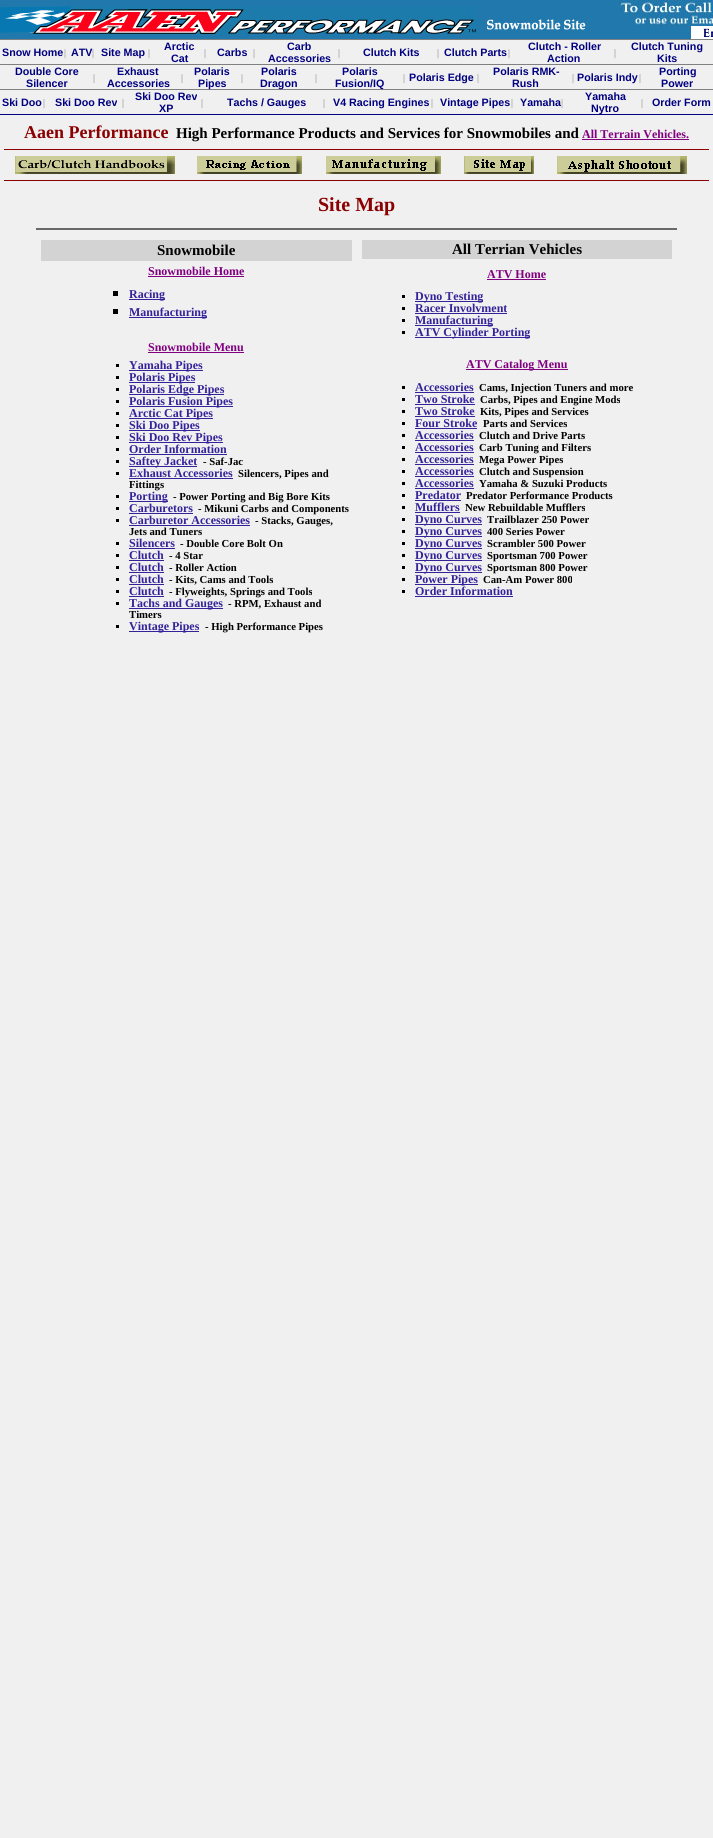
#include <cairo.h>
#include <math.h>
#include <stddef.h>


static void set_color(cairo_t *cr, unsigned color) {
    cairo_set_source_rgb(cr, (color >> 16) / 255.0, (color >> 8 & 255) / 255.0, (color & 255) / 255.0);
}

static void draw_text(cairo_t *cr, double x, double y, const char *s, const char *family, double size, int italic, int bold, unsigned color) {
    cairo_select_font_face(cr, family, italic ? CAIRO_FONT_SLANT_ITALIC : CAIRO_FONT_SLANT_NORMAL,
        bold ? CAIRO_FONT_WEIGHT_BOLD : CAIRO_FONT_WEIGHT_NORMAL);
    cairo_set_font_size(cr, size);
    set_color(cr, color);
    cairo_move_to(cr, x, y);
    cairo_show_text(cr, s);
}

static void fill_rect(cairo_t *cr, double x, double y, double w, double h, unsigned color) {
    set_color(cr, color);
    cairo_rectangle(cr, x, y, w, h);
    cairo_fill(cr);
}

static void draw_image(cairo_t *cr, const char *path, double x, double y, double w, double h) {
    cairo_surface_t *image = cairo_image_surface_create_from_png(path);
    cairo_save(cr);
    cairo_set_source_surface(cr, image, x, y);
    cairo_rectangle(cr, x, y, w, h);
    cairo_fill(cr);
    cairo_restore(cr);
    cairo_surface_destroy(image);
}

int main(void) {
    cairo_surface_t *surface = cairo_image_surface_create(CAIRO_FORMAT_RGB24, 713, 1838);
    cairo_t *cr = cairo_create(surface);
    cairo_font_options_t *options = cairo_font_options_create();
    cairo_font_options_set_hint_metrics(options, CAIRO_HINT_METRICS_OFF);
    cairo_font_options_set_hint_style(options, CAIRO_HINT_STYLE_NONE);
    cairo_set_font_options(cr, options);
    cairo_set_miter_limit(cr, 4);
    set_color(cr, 0xF0F0F0);
    cairo_paint(cr);
    fill_rect(cr, 0, 0, 691, 39, 0x2178AD);
    draw_image(cr, "assets/img1.png", 0, 6, 476, 28);
    draw_image(cr, "assets/img2.png", 487, 19, 99, 11);
    draw_image(cr, "assets/img3.png", 619, 0, 94, 26);
    draw_image(cr, "assets/img4.png", 691, 26, 22, 13);
    fill_rect(cr, 0, 39, 713, 1, 0x808080);
    draw_text(cr, 2, 56, "Snow Home", "Liberation Sans", 10.7, 0, 1, 0x000080);
    draw_text(cr, 64, 56, "|", "Liberation Serif", 10, 0, 0, 0x808080);
    draw_text(cr, 71, 56, "ATV", "Liberation Sans", 10.7, 0, 1, 0x000080);
    draw_text(cr, 92, 56, "|", "Liberation Serif", 10, 0, 0, 0x808080);
    draw_text(cr, 101, 56, "Site Map", "Liberation Sans", 10.7, 0, 1, 0x000080);
    draw_text(cr, 148, 56, "|", "Liberation Serif", 10, 0, 0, 0x808080);
    draw_text(cr, 164, 50, "Arctic", "Liberation Sans", 10.7, 0, 1, 0x000080);
    draw_text(cr, 171, 62, "Cat", "Liberation Sans", 10.7, 0, 1, 0x000080);
    draw_text(cr, 204, 56, "|", "Liberation Serif", 10, 0, 0, 0x808080);
    draw_text(cr, 217, 56, "Carbs", "Liberation Sans", 10.7, 0, 1, 0x000080);
    draw_text(cr, 253, 56, "|", "Liberation Serif", 10, 0, 0, 0x808080);
    draw_text(cr, 287, 50, "Carb", "Liberation Sans", 10.7, 0, 1, 0x000080);
    draw_text(cr, 268, 62, "Accessories", "Liberation Sans", 10.7, 0, 1, 0x000080);
    draw_text(cr, 338, 56, "|", "Liberation Serif", 10, 0, 0, 0x808080);
    draw_text(cr, 363, 56, "Clutch Kits", "Liberation Sans", 10.7, 0, 1, 0x000080);
    draw_text(cr, 437, 56, "|", "Liberation Serif", 10, 0, 0, 0x808080);
    draw_text(cr, 444, 56, "Clutch Parts", "Liberation Sans", 10.7, 0, 1, 0x000080);
    draw_text(cr, 508, 56, "|", "Liberation Serif", 10, 0, 0, 0x808080);
    draw_text(cr, 528, 50, "Clutch - Roller", "Liberation Sans", 10.7, 0, 1, 0x000080);
    draw_text(cr, 547, 62, "Action", "Liberation Sans", 10.7, 0, 1, 0x000080);
    draw_text(cr, 614, 56, "|", "Liberation Serif", 10, 0, 0, 0x808080);
    draw_text(cr, 631, 50, "Clutch Tuning", "Liberation Sans", 10.7, 0, 1, 0x000080);
    draw_text(cr, 657, 62, "Kits", "Liberation Sans", 10.7, 0, 1, 0x000080);
    fill_rect(cr, 0, 64, 713, 1, 0x808080);
    draw_text(cr, 15, 75, "Double Core", "Liberation Sans", 10.7, 0, 1, 0x000080);
    draw_text(cr, 26, 87, "Silencer", "Liberation Sans", 10.7, 0, 1, 0x000080);
    draw_text(cr, 93, 81, "|", "Liberation Serif", 10, 0, 0, 0x808080);
    draw_text(cr, 117, 75, "Exhaust", "Liberation Sans", 10.7, 0, 1, 0x000080);
    draw_text(cr, 107, 87, "Accessories", "Liberation Sans", 10.7, 0, 1, 0x000080);
    draw_text(cr, 181, 81, "|", "Liberation Serif", 10, 0, 0, 0x808080);
    draw_text(cr, 194, 75, "Polaris", "Liberation Sans", 10.7, 0, 1, 0x000080);
    fill_rect(cr, 0, 89, 713, 1, 0x808080);
    draw_text(cr, 198, 87, "Pipes", "Liberation Sans", 10.7, 0, 1, 0x000080);
    draw_text(cr, 241, 81, "|", "Liberation Serif", 10, 0, 0, 0x808080);
    draw_text(cr, 261, 75, "Polaris", "Liberation Sans", 10.7, 0, 1, 0x000080);
    draw_text(cr, 260, 87, "Dragon", "Liberation Sans", 10.7, 0, 1, 0x000080);
    draw_text(cr, 315, 81, "|", "Liberation Serif", 10, 0, 0, 0x808080);
    draw_text(cr, 342, 75, "Polaris", "Liberation Sans", 10.7, 0, 1, 0x000080);
    draw_text(cr, 335, 87, "Fusion/IQ", "Liberation Sans", 10.7, 0, 1, 0x000080);
    draw_text(cr, 403, 81, "|", "Liberation Serif", 10, 0, 0, 0x808080);
    draw_text(cr, 409, 81, "Polaris Edge", "Liberation Sans", 10.7, 0, 1, 0x000080);
    draw_text(cr, 477, 81, "|", "Liberation Serif", 10, 0, 0, 0x808080);
    draw_text(cr, 493, 75, "Polaris RMK-", "Liberation Sans", 10.7, 0, 1, 0x000080);
    draw_text(cr, 512, 87, "Rush", "Liberation Sans", 10.7, 0, 1, 0x000080);
    draw_text(cr, 572, 81, "|", "Liberation Serif", 10, 0, 0, 0x808080);
    draw_text(cr, 577, 81, "Polaris Indy", "Liberation Sans", 10.7, 0, 1, 0x000080);
    draw_text(cr, 639, 81, "|", "Liberation Serif", 10, 0, 0, 0x808080);
    draw_text(cr, 659, 75, "Porting", "Liberation Sans", 10.7, 0, 1, 0x000080);
    draw_text(cr, 661, 87, "Power", "Liberation Sans", 10.7, 0, 1, 0x000080);
    draw_text(cr, 2, 106, "Ski Doo", "Liberation Sans", 10.7, 0, 1, 0x000080);
    draw_text(cr, 43, 106, "|", "Liberation Serif", 10, 0, 0, 0x808080);
    draw_text(cr, 55, 106, "Ski Doo Rev", "Liberation Sans", 10.7, 0, 1, 0x000080);
    draw_text(cr, 122, 106, "|", "Liberation Serif", 10, 0, 0, 0x808080);
    draw_text(cr, 135, 100, "Ski Doo Rev", "Liberation Sans", 10.7, 0, 1, 0x000080);
    draw_text(cr, 159, 112, "XP", "Liberation Sans", 10.7, 0, 1, 0x000080);
    draw_text(cr, 201, 106, "|", "Liberation Serif", 10, 0, 0, 0x808080);
    draw_text(cr, 227, 106, "Tachs / Gauges", "Liberation Sans", 10.7, 0, 1, 0x000080);
    draw_text(cr, 323, 106, "|", "Liberation Serif", 10, 0, 0, 0x808080);
    draw_text(cr, 333, 106, "V4 Racing Engines", "Liberation Sans", 10.7, 0, 1, 0x000080);
    draw_text(cr, 431, 106, "|", "Liberation Serif", 10, 0, 0, 0x808080);
    draw_text(cr, 440, 106, "Vintage Pipes", "Liberation Sans", 10.7, 0, 1, 0x000080);
    draw_text(cr, 511, 106, "|", "Liberation Serif", 10, 0, 0, 0x808080);
    draw_text(cr, 520, 106, "Yamaha", "Liberation Sans", 10.7, 0, 1, 0x000080);
    draw_text(cr, 561, 106, "|", "Liberation Serif", 10, 0, 0, 0x808080);
    draw_text(cr, 585, 100, "Yamaha", "Liberation Sans", 10.7, 0, 1, 0x000080);
    fill_rect(cr, 0, 114, 713, 1, 0x000080);
    draw_text(cr, 591, 112, "Nytro", "Liberation Sans", 10.7, 0, 1, 0x000080);
    draw_text(cr, 641, 106, "|", "Liberation Serif", 10, 0, 0, 0x808080);
    draw_text(cr, 652, 106, "Order Form", "Liberation Sans", 10.7, 0, 1, 0x000080);
    draw_text(cr, 24, 138, "Aaen Performance", "Liberation Serif", 18, 0, 1, 0x8B0000);
    draw_text(cr, 176, 138, "High Performance Products and Services for Snowmobiles and", "Liberation Serif", 15, 0, 1, 0x000000);
    draw_text(cr, 582, 138, "All Terrain Vehicles.", "Liberation Serif", 12, 0, 1, 0x800080);
    fill_rect(cr, 582, 139, 107, 1, 0x800080);
    fill_rect(cr, 4, 149, 705, 1, 0x8B0000);
    draw_image(cr, "assets/img5.png", 15, 156, 160, 18);
    draw_image(cr, "assets/img6.png", 197, 156, 105, 18);
    draw_image(cr, "assets/img7.png", 326, 156, 115, 18);
    draw_image(cr, "assets/img8.png", 464, 156, 70, 18);
    draw_image(cr, "assets/img9.png", 557, 156, 130, 18);
    fill_rect(cr, 4, 180, 705, 1, 0x8B0000);
    draw_text(cr, 318, 211, "Site Map", "Liberation Serif", 20, 0, 1, 0x8B0000);
    fill_rect(cr, 36, 228, 641, 2, 0x696969);
    fill_rect(cr, 41, 240, 311, 21, 0xD3D3D3);
    draw_text(cr, 157, 255, "Snowmobile", "Liberation Serif", 15, 0, 1, 0x000000);
    draw_text(cr, 148, 275, "Snowmobile Home", "Liberation Serif", 12, 0, 1, 0x800080);
    fill_rect(cr, 148, 276, 96, 1, 0x800080);
    fill_rect(cr, 113, 291, 5, 5, 0x000000);
    fill_rect(cr, 129, 299, 36, 1, 0x332299);
    draw_text(cr, 129, 298, "Racing", "Liberation Serif", 12, 0, 1, 0x332299);
    fill_rect(cr, 113, 309, 5, 5, 0x000000);
    fill_rect(cr, 129, 317, 78, 1, 0x332299);
    draw_text(cr, 129, 316, "Manufacturing", "Liberation Serif", 12, 0, 1, 0x332299);
    draw_text(cr, 148, 351, "Snowmobile Menu", "Liberation Serif", 12, 0, 1, 0x800080);
    fill_rect(cr, 148, 352, 96, 1, 0x800080);
    fill_rect(cr, 116, 364, 3, 3, 0x000000);
    fill_rect(cr, 129, 370, 74, 1, 0x332299);
    draw_text(cr, 129, 369, "Yamaha Pipes", "Liberation Serif", 12, 0, 1, 0x332299);
    fill_rect(cr, 116, 376, 3, 3, 0x000000);
    fill_rect(cr, 129, 382, 66, 1, 0x332299);
    draw_text(cr, 129, 381, "Polaris Pipes", "Liberation Serif", 12, 0, 1, 0x332299);
    fill_rect(cr, 116, 388, 3, 3, 0x000000);
    fill_rect(cr, 129, 394, 95, 1, 0x332299);
    draw_text(cr, 129, 393, "Polaris Edge Pipes", "Liberation Serif", 12, 0, 1, 0x332299);
    fill_rect(cr, 116, 400, 3, 3, 0x000000);
    fill_rect(cr, 129, 406, 104, 1, 0x332299);
    draw_text(cr, 129, 405, "Polaris Fusion Pipes", "Liberation Serif", 12, 0, 1, 0x332299);
    fill_rect(cr, 116, 412, 3, 3, 0x000000);
    fill_rect(cr, 129, 418, 84, 1, 0x332299);
    draw_text(cr, 129, 417, "Arctic Cat Pipes", "Liberation Serif", 12, 0, 1, 0x332299);
    fill_rect(cr, 116, 424, 3, 3, 0x000000);
    fill_rect(cr, 129, 430, 71, 1, 0x332299);
    draw_text(cr, 129, 429, "Ski Doo Pipes", "Liberation Serif", 12, 0, 1, 0x332299);
    fill_rect(cr, 116, 436, 3, 3, 0x000000);
    fill_rect(cr, 129, 442, 94, 1, 0x332299);
    draw_text(cr, 129, 441, "Ski Doo Rev Pipes", "Liberation Serif", 12, 0, 1, 0x332299);
    fill_rect(cr, 116, 448, 3, 3, 0x000000);
    draw_text(cr, 129, 453, "Order Information", "Liberation Serif", 12, 0, 1, 0x332299);
    fill_rect(cr, 129, 454, 98, 1, 0x332299);
    fill_rect(cr, 116, 460, 3, 3, 0x000000);
    fill_rect(cr, 129, 466, 68, 1, 0x332299);
    draw_text(cr, 129, 465, "Saftey Jacket", "Liberation Serif", 12, 0, 1, 0x332299);
    draw_text(cr, 203, 465, "- Saf-Jac", "Liberation Serif", 10.7, 0, 1, 0x000000);
    fill_rect(cr, 116, 472, 3, 3, 0x000000);
    draw_text(cr, 129, 477, "Exhaust Accessories", "Liberation Serif", 12, 0, 1, 0x332299);
    fill_rect(cr, 129, 478, 104, 1, 0x332299);
    draw_text(cr, 238, 477, "Silencers, Pipes and", "Liberation Serif", 10.7, 0, 1, 0x000000);
    draw_text(cr, 129, 488, "Fittings", "Liberation Serif", 10.7, 0, 1, 0x000000);
    fill_rect(cr, 116, 495, 3, 3, 0x000000);
    fill_rect(cr, 129, 501, 39, 1, 0x332299);
    draw_text(cr, 129, 500, "Porting", "Liberation Serif", 12, 0, 1, 0x332299);
    draw_text(cr, 173, 500, "- Power Porting and Big Bore Kits", "Liberation Serif", 10.7, 0, 1, 0x000000);
    fill_rect(cr, 116, 507, 3, 3, 0x000000);
    draw_text(cr, 129, 512, "Carburetors", "Liberation Serif", 12, 0, 1, 0x332299);
    fill_rect(cr, 129, 513, 64, 1, 0x332299);
    draw_text(cr, 198, 512, "- Mikuni Carbs and Components", "Liberation Serif", 10.7, 0, 1, 0x000000);
    fill_rect(cr, 116, 519, 3, 3, 0x000000);
    draw_text(cr, 129, 524, "Carburetor Accessories", "Liberation Serif", 12, 0, 1, 0x332299);
    fill_rect(cr, 129, 525, 121, 1, 0x332299);
    draw_text(cr, 255, 524, "- Stacks, Gauges,", "Liberation Serif", 10.7, 0, 1, 0x000000);
    draw_text(cr, 129, 535, "Jets and Tuners", "Liberation Serif", 10.7, 0, 1, 0x000000);
    fill_rect(cr, 116, 542, 3, 3, 0x000000);
    draw_text(cr, 129, 547, "Silencers", "Liberation Serif", 12, 0, 1, 0x332299);
    fill_rect(cr, 129, 548, 46, 1, 0x332299);
    draw_text(cr, 180, 547, "- Double Core Bolt On", "Liberation Serif", 10.7, 0, 1, 0x000000);
    fill_rect(cr, 116, 554, 3, 3, 0x000000);
    draw_text(cr, 129, 559, "Clutch", "Liberation Serif", 12, 0, 1, 0x332299);
    fill_rect(cr, 129, 560, 35, 1, 0x332299);
    draw_text(cr, 169, 559, "- 4 Star", "Liberation Serif", 10.7, 0, 1, 0x000000);
    fill_rect(cr, 116, 566, 3, 3, 0x000000);
    draw_text(cr, 129, 571, "Clutch", "Liberation Serif", 12, 0, 1, 0x332299);
    fill_rect(cr, 129, 572, 35, 1, 0x332299);
    draw_text(cr, 169, 571, "- Roller Action", "Liberation Serif", 10.7, 0, 1, 0x000000);
    fill_rect(cr, 116, 578, 3, 3, 0x000000);
    draw_text(cr, 129, 583, "Clutch", "Liberation Serif", 12, 0, 1, 0x332299);
    fill_rect(cr, 129, 584, 35, 1, 0x332299);
    draw_text(cr, 169, 583, "- Kits, Cams and Tools", "Liberation Serif", 10.7, 0, 1, 0x000000);
    fill_rect(cr, 116, 590, 3, 3, 0x000000);
    draw_text(cr, 129, 595, "Clutch", "Liberation Serif", 12, 0, 1, 0x332299);
    fill_rect(cr, 129, 596, 35, 1, 0x332299);
    draw_text(cr, 169, 595, "- Flyweights, Springs and Tools", "Liberation Serif", 10.7, 0, 1, 0x000000);
    fill_rect(cr, 116, 602, 3, 3, 0x000000);
    fill_rect(cr, 129, 608, 94, 1, 0x332299);
    draw_text(cr, 129, 607, "Tachs and Gauges", "Liberation Serif", 12, 0, 1, 0x332299);
    draw_text(cr, 228, 607, "- RPM, Exhaust and", "Liberation Serif", 10.7, 0, 1, 0x000000);
    draw_text(cr, 129, 618, "Timers", "Liberation Serif", 10.7, 0, 1, 0x000000);
    fill_rect(cr, 116, 625, 3, 3, 0x000000);
    fill_rect(cr, 129, 631, 70, 1, 0x332299);
    draw_text(cr, 129, 630, "Vintage Pipes", "Liberation Serif", 12, 0, 1, 0x332299);
    draw_text(cr, 205, 630, "- High Performance Pipes", "Liberation Serif", 10.7, 0, 1, 0x000000);
    fill_rect(cr, 362, 240, 310, 19, 0xD3D3D3);
    draw_text(cr, 452, 254, "All Terrian Vehicles", "Liberation Serif", 15, 0, 1, 0x000000);
    draw_text(cr, 487, 278, "ATV Home", "Liberation Serif", 12, 0, 1, 0x800080);
    fill_rect(cr, 487, 279, 59, 1, 0x800080);
    fill_rect(cr, 402, 295, 3, 3, 0x000000);
    fill_rect(cr, 415, 301, 68, 1, 0x332299);
    draw_text(cr, 415, 300, "Dyno Testing", "Liberation Serif", 12, 0, 1, 0x332299);
    fill_rect(cr, 402, 307, 3, 3, 0x000000);
    draw_text(cr, 415, 312, "Racer Involvment", "Liberation Serif", 12, 0, 1, 0x332299);
    fill_rect(cr, 415, 313, 92, 1, 0x332299);
    fill_rect(cr, 402, 319, 3, 3, 0x000000);
    fill_rect(cr, 415, 325, 78, 1, 0x332299);
    draw_text(cr, 415, 324, "Manufacturing", "Liberation Serif", 12, 0, 1, 0x332299);
    fill_rect(cr, 402, 331, 3, 3, 0x000000);
    fill_rect(cr, 415, 337, 115, 1, 0x332299);
    draw_text(cr, 415, 336, "ATV Cylinder Porting", "Liberation Serif", 12, 0, 1, 0x332299);
    fill_rect(cr, 466, 369, 102, 1, 0x800080);
    draw_text(cr, 466, 368, "ATV Catalog Menu", "Liberation Serif", 12, 0, 1, 0x800080);
    fill_rect(cr, 402, 386, 3, 3, 0x000000);
    draw_text(cr, 415, 391, "Accessories", "Liberation Serif", 12, 0, 1, 0x332299);
    fill_rect(cr, 415, 392, 59, 1, 0x332299);
    draw_text(cr, 479, 391, "Cams, Injection Tuners and more", "Liberation Serif", 10.7, 0, 1, 0x000000);
    fill_rect(cr, 402, 398, 3, 3, 0x000000);
    draw_text(cr, 415, 403, "Two Stroke", "Liberation Serif", 12, 0, 1, 0x332299);
    fill_rect(cr, 415, 404, 60, 1, 0x332299);
    draw_text(cr, 480, 403, "Carbs, Pipes and Engine Mods", "Liberation Serif", 10.7, 0, 1, 0x000000);
    fill_rect(cr, 402, 410, 3, 3, 0x000000);
    draw_text(cr, 415, 415, "Two Stroke", "Liberation Serif", 12, 0, 1, 0x332299);
    fill_rect(cr, 415, 416, 60, 1, 0x332299);
    draw_text(cr, 480, 415, "Kits, Pipes and Services", "Liberation Serif", 10.7, 0, 1, 0x000000);
    fill_rect(cr, 402, 422, 3, 3, 0x000000);
    draw_text(cr, 415, 427, "Four Stroke", "Liberation Serif", 12, 0, 1, 0x332299);
    fill_rect(cr, 415, 428, 62, 1, 0x332299);
    draw_text(cr, 483, 427, "Parts and Services", "Liberation Serif", 10.7, 0, 1, 0x000000);
    fill_rect(cr, 402, 434, 3, 3, 0x000000);
    draw_text(cr, 415, 439, "Accessories", "Liberation Serif", 12, 0, 1, 0x332299);
    fill_rect(cr, 415, 440, 59, 1, 0x332299);
    draw_text(cr, 479, 439, "Clutch and Drive Parts", "Liberation Serif", 10.7, 0, 1, 0x000000);
    fill_rect(cr, 402, 446, 3, 3, 0x000000);
    draw_text(cr, 415, 451, "Accessories", "Liberation Serif", 12, 0, 1, 0x332299);
    fill_rect(cr, 415, 452, 59, 1, 0x332299);
    draw_text(cr, 479, 451, "Carb Tuning and Filters", "Liberation Serif", 10.7, 0, 1, 0x000000);
    fill_rect(cr, 402, 458, 3, 3, 0x000000);
    draw_text(cr, 415, 463, "Accessories", "Liberation Serif", 12, 0, 1, 0x332299);
    fill_rect(cr, 415, 464, 59, 1, 0x332299);
    draw_text(cr, 479, 463, "Mega Power Pipes", "Liberation Serif", 10.7, 0, 1, 0x000000);
    fill_rect(cr, 402, 470, 3, 3, 0x000000);
    draw_text(cr, 415, 475, "Accessories", "Liberation Serif", 12, 0, 1, 0x332299);
    fill_rect(cr, 415, 476, 59, 1, 0x332299);
    draw_text(cr, 479, 475, "Clutch and Suspension", "Liberation Serif", 10.7, 0, 1, 0x000000);
    fill_rect(cr, 402, 482, 3, 3, 0x000000);
    draw_text(cr, 415, 487, "Accessories", "Liberation Serif", 12, 0, 1, 0x332299);
    fill_rect(cr, 415, 488, 59, 1, 0x332299);
    draw_text(cr, 479, 487, "Yamaha & Suzuki Products", "Liberation Serif", 10.7, 0, 1, 0x000000);
    fill_rect(cr, 402, 494, 3, 3, 0x000000);
    draw_text(cr, 415, 499, "Predator", "Liberation Serif", 12, 0, 1, 0x332299);
    fill_rect(cr, 415, 500, 46, 1, 0x332299);
    draw_text(cr, 466, 499, "Predator Performance Products", "Liberation Serif", 10.7, 0, 1, 0x000000);
    fill_rect(cr, 402, 506, 3, 3, 0x000000);
    draw_text(cr, 415, 511, "Mufflers", "Liberation Serif", 12, 0, 1, 0x332299);
    fill_rect(cr, 415, 512, 45, 1, 0x332299);
    draw_text(cr, 465, 511, "New Rebuildable Mufflers", "Liberation Serif", 10.7, 0, 1, 0x000000);
    fill_rect(cr, 402, 518, 3, 3, 0x000000);
    fill_rect(cr, 415, 524, 67, 1, 0x332299);
    draw_text(cr, 415, 523, "Dyno Curves", "Liberation Serif", 12, 0, 1, 0x332299);
    draw_text(cr, 487, 523, "Trailblazer 250 Power", "Liberation Serif", 10.7, 0, 1, 0x000000);
    fill_rect(cr, 402, 530, 3, 3, 0x000000);
    fill_rect(cr, 415, 536, 67, 1, 0x332299);
    draw_text(cr, 415, 535, "Dyno Curves", "Liberation Serif", 12, 0, 1, 0x332299);
    draw_text(cr, 487, 535, "400 Series Power", "Liberation Serif", 10.7, 0, 1, 0x000000);
    fill_rect(cr, 402, 542, 3, 3, 0x000000);
    fill_rect(cr, 415, 548, 67, 1, 0x332299);
    draw_text(cr, 415, 547, "Dyno Curves", "Liberation Serif", 12, 0, 1, 0x332299);
    draw_text(cr, 487, 547, "Scrambler 500 Power", "Liberation Serif", 10.7, 0, 1, 0x000000);
    fill_rect(cr, 402, 554, 3, 3, 0x000000);
    fill_rect(cr, 415, 560, 67, 1, 0x332299);
    draw_text(cr, 415, 559, "Dyno Curves", "Liberation Serif", 12, 0, 1, 0x332299);
    draw_text(cr, 487, 559, "Sportsman 700 Power", "Liberation Serif", 10.7, 0, 1, 0x000000);
    fill_rect(cr, 402, 566, 3, 3, 0x000000);
    fill_rect(cr, 415, 572, 67, 1, 0x332299);
    draw_text(cr, 415, 571, "Dyno Curves", "Liberation Serif", 12, 0, 1, 0x332299);
    draw_text(cr, 487, 571, "Sportsman 800 Power", "Liberation Serif", 10.7, 0, 1, 0x000000);
    fill_rect(cr, 402, 578, 3, 3, 0x000000);
    fill_rect(cr, 415, 584, 63, 1, 0x332299);
    draw_text(cr, 415, 583, "Power Pipes", "Liberation Serif", 12, 0, 1, 0x332299);
    draw_text(cr, 483, 583, "Can-Am Power 800", "Liberation Serif", 10.7, 0, 1, 0x000000);
    fill_rect(cr, 402, 590, 3, 3, 0x000000);
    draw_text(cr, 415, 595, "Order Information", "Liberation Serif", 12, 0, 1, 0x332299);
    fill_rect(cr, 415, 596, 98, 1, 0x332299);
    cairo_surface_write_to_png(surface, "output.png");
    cairo_font_options_destroy(options);
    cairo_destroy(cr);
    cairo_surface_destroy(surface);
    return 0;
}
